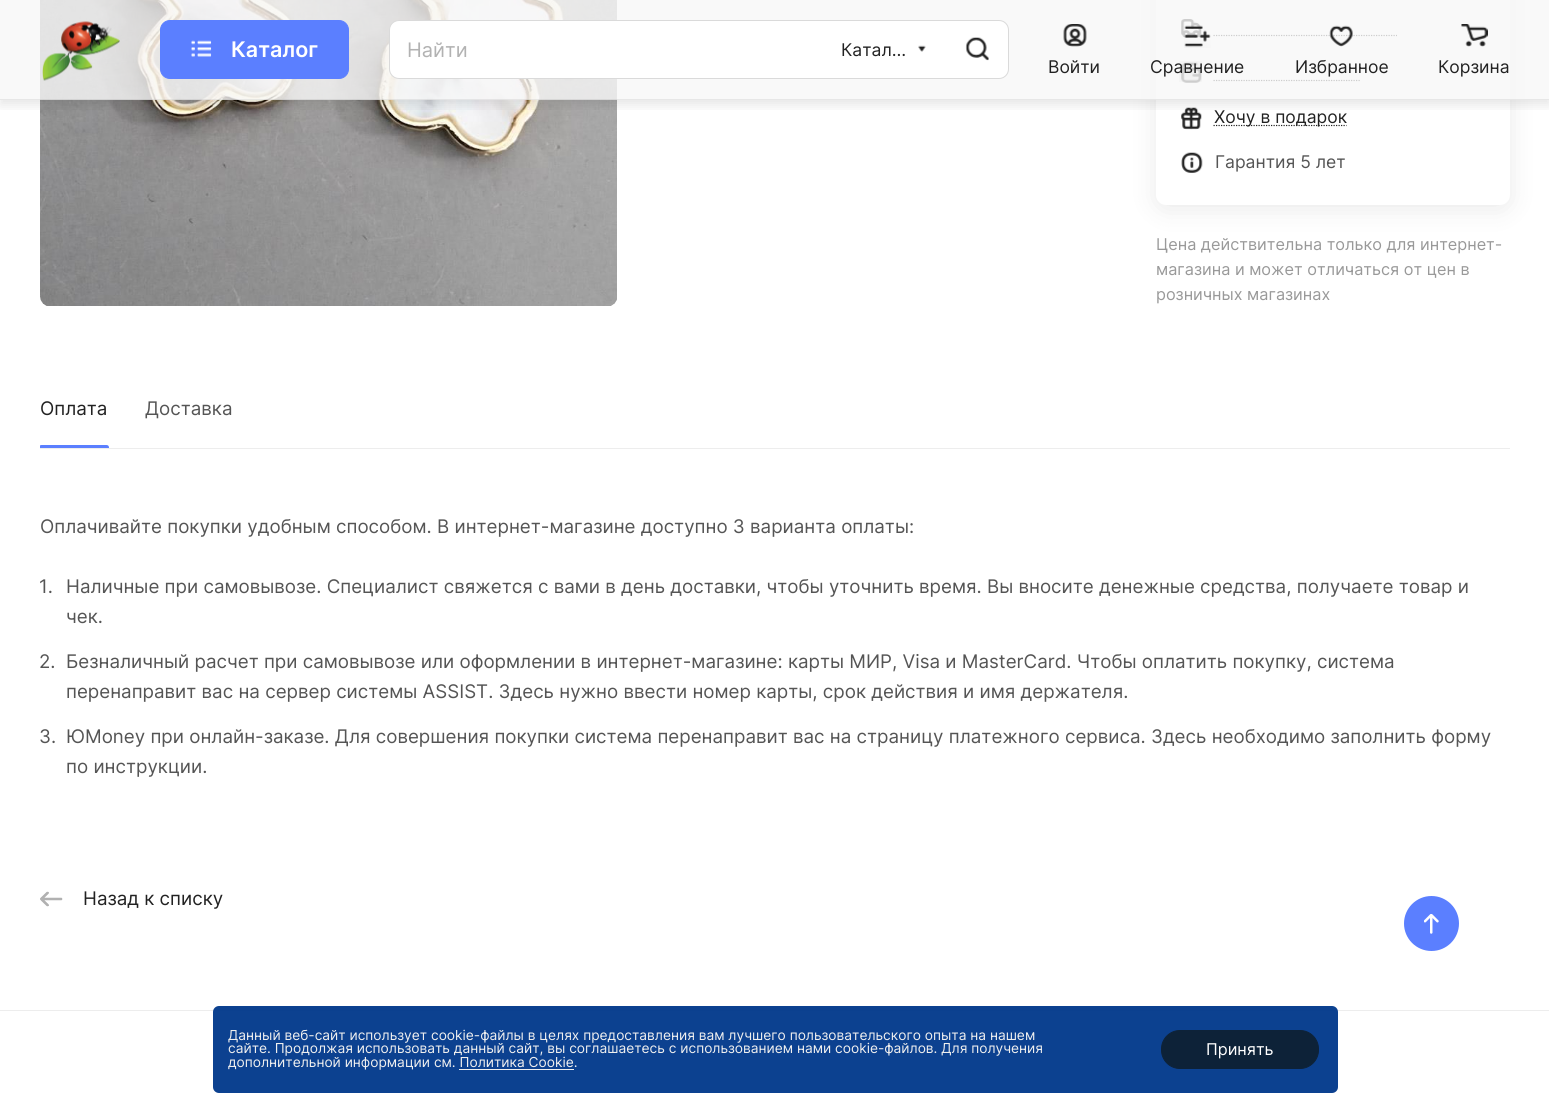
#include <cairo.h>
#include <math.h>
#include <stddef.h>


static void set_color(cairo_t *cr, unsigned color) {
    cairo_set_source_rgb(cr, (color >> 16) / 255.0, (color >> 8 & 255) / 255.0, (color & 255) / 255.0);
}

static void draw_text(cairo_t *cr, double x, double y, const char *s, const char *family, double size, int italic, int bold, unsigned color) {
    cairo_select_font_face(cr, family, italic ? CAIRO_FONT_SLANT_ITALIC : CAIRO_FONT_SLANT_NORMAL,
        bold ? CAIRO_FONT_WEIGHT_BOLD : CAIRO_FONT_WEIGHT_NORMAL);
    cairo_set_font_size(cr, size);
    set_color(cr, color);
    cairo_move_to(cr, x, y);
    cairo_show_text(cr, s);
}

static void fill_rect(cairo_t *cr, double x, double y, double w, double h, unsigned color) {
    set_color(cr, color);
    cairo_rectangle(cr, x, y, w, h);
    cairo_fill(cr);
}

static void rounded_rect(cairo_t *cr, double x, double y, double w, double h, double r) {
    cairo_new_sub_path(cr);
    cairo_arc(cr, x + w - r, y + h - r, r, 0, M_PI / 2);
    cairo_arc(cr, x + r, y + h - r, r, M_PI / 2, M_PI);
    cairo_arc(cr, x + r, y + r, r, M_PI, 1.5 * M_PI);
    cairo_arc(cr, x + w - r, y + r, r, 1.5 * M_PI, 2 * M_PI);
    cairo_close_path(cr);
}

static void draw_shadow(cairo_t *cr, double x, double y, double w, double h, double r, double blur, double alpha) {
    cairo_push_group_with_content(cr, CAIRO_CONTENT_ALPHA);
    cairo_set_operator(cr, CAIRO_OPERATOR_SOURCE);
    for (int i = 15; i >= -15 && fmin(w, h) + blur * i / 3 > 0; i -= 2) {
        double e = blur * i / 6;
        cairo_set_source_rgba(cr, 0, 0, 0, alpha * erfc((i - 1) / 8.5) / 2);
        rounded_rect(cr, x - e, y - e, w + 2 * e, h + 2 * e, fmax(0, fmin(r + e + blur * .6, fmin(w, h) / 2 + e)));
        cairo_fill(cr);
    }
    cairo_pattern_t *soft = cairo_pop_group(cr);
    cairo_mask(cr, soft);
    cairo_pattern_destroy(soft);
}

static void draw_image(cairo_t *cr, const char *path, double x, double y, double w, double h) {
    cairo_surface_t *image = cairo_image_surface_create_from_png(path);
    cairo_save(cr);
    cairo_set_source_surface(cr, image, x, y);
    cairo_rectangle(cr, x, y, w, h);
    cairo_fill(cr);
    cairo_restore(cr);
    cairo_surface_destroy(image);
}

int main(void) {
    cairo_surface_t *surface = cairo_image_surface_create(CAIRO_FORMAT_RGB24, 1549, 1104);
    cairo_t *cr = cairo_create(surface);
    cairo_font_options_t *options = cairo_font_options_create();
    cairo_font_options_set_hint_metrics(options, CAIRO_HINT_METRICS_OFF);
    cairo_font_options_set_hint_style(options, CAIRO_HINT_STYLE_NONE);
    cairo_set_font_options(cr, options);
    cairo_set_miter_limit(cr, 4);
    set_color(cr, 0xFFFFFF);
    cairo_paint(cr);
    draw_image(cr, "assets/img9.png", 40, 0, 577, 306);
    set_color(cr, 0x222222);
    draw_shadow(cr, 1156, -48, 354, 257, 10, 12.5, 0.1);
    set_color(cr, 0xFFFFFF);
    rounded_rect(cr, 1156, -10, 354, 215, 10);
    cairo_fill(cr);
    draw_image(cr, "assets/img10.png", 1181, 19, 21, 19);
    cairo_new_path(cr);
    cairo_move_to(cr, 1213.5, 35.5);
    cairo_line_to(cr, 1397, 35.5);
    set_color(cr, 0x222222);
    cairo_set_line_width(cr, 1.2);
    cairo_set_dash(cr, (double[]){1.25, 1.25}, 2, 0);
    cairo_stroke(cr);
    draw_image(cr, "assets/img11.png", 1179, 61, 23, 22);
    cairo_new_path(cr);
    cairo_move_to(cr, 1213.5, 80.5);
    cairo_line_to(cr, 1361, 80.5);
    cairo_stroke(cr);
    cairo_set_source_rgba(cr, 0.969, 0.969, 0.969, 0.8);
    cairo_rectangle(cr, 0, 0, 1549, 100);
    cairo_fill(cr);
    draw_image(cr, "assets/img12.png", 1181, 107, 21, 23);
    cairo_save(cr);
    cairo_rectangle(cr, 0, 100, 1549, 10);
    cairo_clip(cr);
    set_color(cr, 0x000000);
    draw_shadow(cr, 0, 5, 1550, 100, 0, 6, 0.1);
    cairo_restore(cr);
    cairo_set_source_rgba(cr, 0.133, 0.133, 0.133, 0.08);
    cairo_rectangle(cr, 0, 99, 1549, 1);
    cairo_fill(cr);
    draw_image(cr, "assets/img1.png", 42, 21, 78, 60);
    set_color(cr, 0x5B7FFF);
    rounded_rect(cr, 160.5, 20.5, 188, 58, 9.5);
    cairo_fill_preserve(cr);
    cairo_set_line_width(cr, 1);
    cairo_set_dash(cr, NULL, 0, 0);
    cairo_stroke(cr);
    draw_image(cr, "assets/img2.png", 191, 40, 21, 17);
    draw_text(cr, 231, 57, "Каталог", "Inter SemiBold", 21.5, 0, 0, 0xFFFFFF);
    rounded_rect(cr, 389.5, 20.5, 619, 58, 9.5);
    cairo_fill_preserve(cr);
    set_color(cr, 0xDADADA);
    cairo_stroke(cr);
    draw_text(cr, 407, 57, "Найти", "Inter", 20, 0, 0, 0xB2B2B2);
    draw_text(cr, 841, 56, "Катал…", "Inter", 17.5, 0, 0, 0x222222);
    draw_image(cr, "assets/img3.png", 918, 45, 8, 7);
    draw_image(cr, "assets/img4.png", 965, 37, 24, 24);
    draw_image(cr, "assets/img5.png", 1063, 24, 24, 23);
    draw_text(cr, 1048, 73, "Войти", "Inter", 17.5, 0, 0, 0x222222);
    draw_image(cr, "assets/img6.png", 1184, 25, 27, 23);
    draw_text(cr, 1150, 73, "Сравнение", "Inter", 17.5, 0, 0, 0x222222);
    draw_image(cr, "assets/img7.png", 1329, 25, 24, 22);
    draw_text(cr, 1295, 73, "Избранное", "Inter", 17.5, 0, 0, 0x222222);
    draw_image(cr, "assets/img8.png", 1461, 24, 27, 23);
    draw_text(cr, 1438, 73, "Корзина", "Inter", 17.5, 0, 0, 0x222222);
    cairo_new_path(cr);
    cairo_move_to(cr, 1213.5, 125.5);
    cairo_line_to(cr, 1346.5, 125.5);
    cairo_set_line_width(cr, 1.2);
    cairo_set_dash(cr, (double[]){1.25, 1.25}, 2, 0);
    cairo_stroke(cr);
    draw_text(cr, 1214, 123, "Хочу в подарок", "Inter", 17.5, 0, 0, 0x222222);
    draw_image(cr, "assets/img13.png", 1181, 152, 22, 21);
    draw_text(cr, 1215, 168, "Гарантия 5 лет", "Inter", 17.5, 0, 0, 0x555555);
    draw_text(cr, 1156, 250, "Цена действительна только для интернет-", "Inter", 16.25, 0, 0, 0x999999);
    draw_text(cr, 1156, 275, "магазина и может отличаться от цен в", "Inter", 16.25, 0, 0, 0x999999);
    draw_text(cr, 1156, 300, "розничных магазинах", "Inter", 16.25, 0, 0, 0x999999);
    fill_rect(cr, 40, 448, 1470, 1, 0xEDEDED);
    draw_text(cr, 40, 415, "Оплата", "Inter", 18.75, 0, 0, 0x222222);
    cairo_save(cr);
    cairo_rectangle(cr, 40, 371, 1470, 77);
    cairo_clip(cr);
    set_color(cr, 0x5B7FFF);
    cairo_new_path(cr);
    cairo_move_to(cr, 41.5, 445);
    cairo_line_to(cr, 106.5, 445);
    cairo_curve_to(cr, 108, 445, 109, 446, 109, 447.5);
    cairo_line_to(cr, 109, 448);
    cairo_line_to(cr, 39, 448);
    cairo_line_to(cr, 39, 447.5);
    cairo_curve_to(cr, 39, 446, 40, 445, 41.5, 445);
    cairo_close_path(cr);
    cairo_fill(cr);
    cairo_restore(cr);
    draw_text(cr, 145, 415, "Доставка", "Inter", 18.75, 0, 0, 0x555555);
    draw_text(cr, 40, 533, "Оплачивайте покупки удобным способом. В интернет-магазине доступно 3 варианта оплаты:", "Inter", 18.75, 0, 0, 0x555555);
    draw_text(cr, 39, 593, "1.", "Inter", 18.75, 0, 0, 0x555555);
    draw_text(cr, 66, 593, "Наличные при самовывозе. Специалист свяжется с вами в день доставки, чтобы уточнить время. Вы вносите денежные средства, получаете товар и", "Inter", 18.75, 0, 0, 0x555555);
    draw_text(cr, 66, 623, "чек.", "Inter", 18.75, 0, 0, 0x555555);
    draw_text(cr, 39, 668, "2.", "Inter", 18.75, 0, 0, 0x555555);
    draw_text(cr, 66, 668, "Безналичный расчет при самовывозе или оформлении в интернет-магазине: карты МИР, Visa и MasterCard. Чтобы оплатить покупку, система", "Inter", 18.75, 0, 0, 0x555555);
    draw_text(cr, 66, 698, "перенаправит вас на сервер системы ASSIST. Здесь нужно ввести номер карты, срок действия и имя держателя.", "Inter", 18.75, 0, 0, 0x555555);
    draw_text(cr, 39, 743, "3.", "Inter", 18.75, 0, 0, 0x555555);
    draw_text(cr, 66, 743, "ЮMoney при онлайн-заказе. Для совершения покупки система перенаправит вас на страницу платежного сервиса. Здесь необходимо заполнить форму", "Inter", 18.75, 0, 0, 0x555555);
    draw_text(cr, 66, 773, "по инструкции.", "Inter", 18.75, 0, 0, 0x555555);
    draw_image(cr, "assets/img14.png", 40, 891, 23, 16);
    draw_text(cr, 83, 905, "Назад к списку", "Inter", 18.75, 0, 0, 0x222222);
    set_color(cr, 0x5B7FFF);
    cairo_new_path(cr);
    cairo_arc(cr, 1431.5, 923.5, 27.5, 0, 2 * M_PI);
    cairo_fill(cr);
    draw_image(cr, "assets/img15.png", 1424, 914, 15, 20);
    fill_rect(cr, 0, 1010, 1549, 1, 0xEDEDED);
    cairo_set_source_rgba(cr, 0, 0.22, 0.545, 0.95);
    rounded_rect(cr, 213, 1006, 1125, 87, 6);
    cairo_fill(cr);
    draw_text(cr, 228, 1040, "Данный веб-сайт использует cookie-файлы в целях предоставления вам лучшего пользовательского опыта на нашем", "Inter", 13.75, 0, 0, 0xEFEFEF);
    draw_text(cr, 228, 1053, "сайте. Продолжая использовать данный сайт, вы соглашаетесь с использованием нами cookie-файлов. Для получения", "Inter", 13.75, 0, 0, 0xEFEFEF);
    draw_text(cr, 228, 1067, "дополнительной информации см. Политика Cookie.", "Inter", 13.75, 0, 0, 0xEFEFEF);
    fill_rect(cr, 459, 1069, 115, 1, 0xEFEFEF);
    set_color(cr, 0x0D2238);
    rounded_rect(cr, 1161.5, 1030.5, 157, 38, 18.5);
    cairo_fill_preserve(cr);
    cairo_set_line_width(cr, 1);
    cairo_set_dash(cr, NULL, 0, 0);
    cairo_stroke(cr);
    draw_text(cr, 1206, 1055, "Принять", "Inter", 16.25, 0, 0, 0xFFFFFF);
    cairo_surface_write_to_png(surface, "output.png");
    cairo_font_options_destroy(options);
    cairo_destroy(cr);
    cairo_surface_destroy(surface);
    return 0;
}
